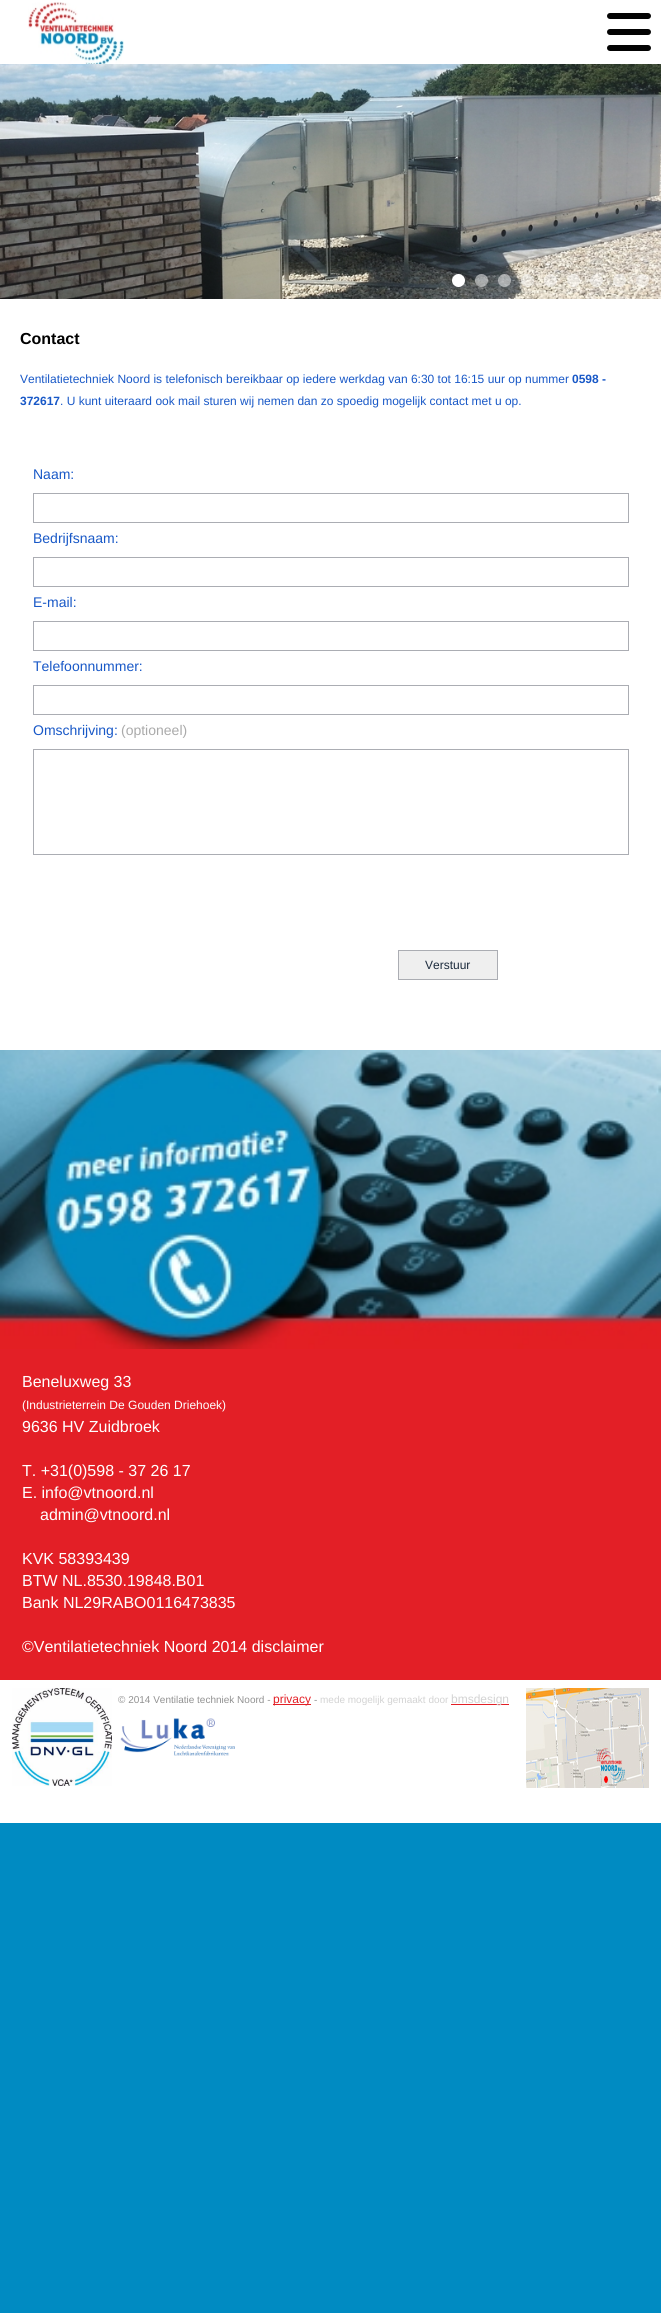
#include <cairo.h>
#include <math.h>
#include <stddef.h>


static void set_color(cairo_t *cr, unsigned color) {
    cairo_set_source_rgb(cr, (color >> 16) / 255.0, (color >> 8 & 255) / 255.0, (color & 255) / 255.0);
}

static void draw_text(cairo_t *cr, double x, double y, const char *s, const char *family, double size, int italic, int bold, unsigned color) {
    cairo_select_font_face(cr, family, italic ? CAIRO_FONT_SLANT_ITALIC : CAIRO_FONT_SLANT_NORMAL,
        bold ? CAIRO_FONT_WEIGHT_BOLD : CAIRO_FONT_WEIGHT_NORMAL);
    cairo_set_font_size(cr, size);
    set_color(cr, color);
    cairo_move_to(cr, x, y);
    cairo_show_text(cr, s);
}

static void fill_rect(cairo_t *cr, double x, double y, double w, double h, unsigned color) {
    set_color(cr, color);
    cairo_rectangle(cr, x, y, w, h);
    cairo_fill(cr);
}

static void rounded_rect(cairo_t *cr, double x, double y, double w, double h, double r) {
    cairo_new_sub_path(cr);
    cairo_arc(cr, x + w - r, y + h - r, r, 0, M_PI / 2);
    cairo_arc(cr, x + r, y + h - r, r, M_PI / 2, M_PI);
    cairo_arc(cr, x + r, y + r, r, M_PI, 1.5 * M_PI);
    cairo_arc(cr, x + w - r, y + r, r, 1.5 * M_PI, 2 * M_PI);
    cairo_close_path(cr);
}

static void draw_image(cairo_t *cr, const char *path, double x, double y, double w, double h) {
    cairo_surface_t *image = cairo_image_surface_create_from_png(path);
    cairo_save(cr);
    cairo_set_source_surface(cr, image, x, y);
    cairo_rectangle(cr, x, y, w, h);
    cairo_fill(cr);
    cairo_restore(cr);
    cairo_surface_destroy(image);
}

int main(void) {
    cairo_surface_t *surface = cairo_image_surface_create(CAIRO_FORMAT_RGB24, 661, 2313);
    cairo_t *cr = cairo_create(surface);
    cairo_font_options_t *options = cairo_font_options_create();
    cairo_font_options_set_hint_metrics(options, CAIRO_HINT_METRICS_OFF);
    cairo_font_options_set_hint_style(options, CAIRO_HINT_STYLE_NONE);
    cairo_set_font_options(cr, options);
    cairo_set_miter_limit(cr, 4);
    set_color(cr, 0x008BC2);
    cairo_paint(cr);
    fill_rect(cr, 0, 0, 661, 64, 0xFFFFFF);
    draw_image(cr, "assets/img1.png", 28, 2, 96, 62);
    set_color(cr, 0x030303);
    rounded_rect(cr, 607, 13, 44, 6, 3);
    cairo_fill(cr);
    rounded_rect(cr, 607, 29, 44, 6, 3);
    cairo_fill(cr);
    rounded_rect(cr, 607, 45, 44, 6, 3);
    cairo_fill(cr);
    draw_image(cr, "assets/img2.png", 0, 64, 661, 235);
    draw_image(cr, "assets/img3.png", 452, 274, 13, 13);
    draw_image(cr, "assets/img4.png", 475, 274, 13, 13);
    draw_image(cr, "assets/img5.png", 498, 274, 13, 13);
    draw_image(cr, "assets/img6.png", 521, 274, 13, 13);
    draw_image(cr, "assets/img7.png", 544, 274, 13, 13);
    draw_image(cr, "assets/img8.png", 567, 274, 13, 13);
    draw_image(cr, "assets/img9.png", 590, 274, 13, 13);
    draw_image(cr, "assets/img10.png", 613, 274, 13, 13);
    draw_image(cr, "assets/img11.png", 636, 274, 13, 13);
    fill_rect(cr, 0, 299, 661, 1524, 0xFFFFFF);
    draw_text(cr, 20, 344, "Contact", "Liberation Sans", 16, 0, 1, 0x000000);
    draw_text(cr, 20, 383, "Ventilatietechniek Noord is telefonisch bereikbaar op iedere werkdag van 6:30 tot 16:15 uur op nummer", "Liberation Sans", 12, 0, 0, 0x1858C7);
    draw_text(cr, 572, 383, "0598 -", "Liberation Sans", 12, 0, 1, 0x1858C7);
    draw_text(cr, 20, 405, "372617", "Liberation Sans", 12, 0, 1, 0x1858C7);
    draw_text(cr, 60, 405, ". U kunt uiteraard ook mail sturen wij nemen dan zo spoedig mogelijk contact met u op.", "Liberation Sans", 12, 0, 0, 0x1858C7);
    draw_text(cr, 33, 479, "Naam:", "Liberation Sans", 14, 0, 0, 0x1858C7);
    cairo_rectangle(cr, 33.5, 493.5, 595, 29);
    set_color(cr, 0xABADB3);
    cairo_set_line_width(cr, 1);
    cairo_stroke(cr);
    draw_text(cr, 33, 543, "Bedrijfsnaam:", "Liberation Sans", 14, 0, 0, 0x1858C7);
    cairo_rectangle(cr, 33.5, 557.5, 595, 29);
    set_color(cr, 0xABADB3);
    cairo_stroke(cr);
    draw_text(cr, 33, 607, "E-mail:", "Liberation Sans", 14, 0, 0, 0x1858C7);
    cairo_rectangle(cr, 33.5, 621.5, 595, 29);
    set_color(cr, 0xABADB3);
    cairo_stroke(cr);
    draw_text(cr, 33, 671, "Telefoonnummer:", "Liberation Sans", 14, 0, 0, 0x1858C7);
    cairo_rectangle(cr, 33.5, 685.5, 595, 29);
    set_color(cr, 0xABADB3);
    cairo_stroke(cr);
    draw_text(cr, 33, 735, "Omschrijving:", "Liberation Sans", 14, 0, 0, 0x1858C7);
    draw_text(cr, 121, 735, "(optioneel)", "Liberation Sans", 14, 0, 0, 0xAAAAAA);
    cairo_rectangle(cr, 33.5, 749.5, 595, 105);
    set_color(cr, 0xABADB3);
    cairo_stroke(cr);
    set_color(cr, 0xEFEFEF);
    cairo_rectangle(cr, 398.5, 950.5, 99, 29);
    cairo_fill_preserve(cr);
    set_color(cr, 0xABADB3);
    cairo_stroke(cr);
    draw_text(cr, 425, 969, "Verstuur", "Liberation Sans", 12, 0, 0, 0x1C2B3D);
    fill_rect(cr, 0, 1349, 661, 331, 0xE31F26);
    draw_image(cr, "assets/img12.png", 0, 1050, 661, 299);
    draw_text(cr, 22, 1387, "Beneluxweg 33", "Liberation Sans", 16, 0, 0, 0xFFFFFF);
    draw_text(cr, 22, 1409, "(Industrieterrein De Gouden Driehoek)", "Liberation Sans", 12, 0, 0, 0xFFFFFF);
    draw_text(cr, 22, 1432, "9636 HV Zuidbroek", "Liberation Sans", 16, 0, 0, 0xFFFFFF);
    draw_text(cr, 22, 1476, "T. +31(0)598 - 37 26 17", "Liberation Sans", 16, 0, 0, 0xFFFFFF);
    draw_text(cr, 22, 1498, "E. info@vtnoord.nl", "Liberation Sans", 16, 0, 0, 0xFFFFFF);
    draw_text(cr, 40, 1520, "admin@vtnoord.nl", "Liberation Sans", 16, 0, 0, 0xFFFFFF);
    draw_text(cr, 22, 1564, "KVK 58393439", "Liberation Sans", 16, 0, 0, 0xFFFFFF);
    draw_text(cr, 22, 1586, "BTW NL.8530.19848.B01", "Liberation Sans", 16, 0, 0, 0xFFFFFF);
    draw_text(cr, 22, 1608, "Bank NL29RABO0116473835", "Liberation Sans", 16, 0, 0, 0xFFFFFF);
    draw_text(cr, 22, 1652, "©Ventilatietechniek Noord 2014 disclaimer", "Liberation Sans", 16, 0, 0, 0xFFFFFF);
    draw_image(cr, "assets/img13.png", 12, 1688, 100, 98);
    draw_text(cr, 118, 1703, "© 2014 Ventilatie techniek Noord -", "Liberation Sans", 10, 0, 0, 0x919191);
    fill_rect(cr, 273, 1704, 38, 1, 0xE31F26);
    draw_text(cr, 273, 1703, "privacy", "Liberation Sans", 12, 0, 0, 0xE31F26);
    draw_text(cr, 314, 1703, "-", "Liberation Sans", 10, 0, 0, 0x919191);
    draw_text(cr, 320, 1703, "mede mogelijk gemaakt door", "Liberation Sans", 10, 0, 0, 0xD3D3D3);
    fill_rect(cr, 451, 1704, 58, 1, 0xE31F26);
    draw_text(cr, 451, 1703, "bmsdesign", "Liberation Sans", 12, 0, 0, 0xD3D3D3);
    draw_image(cr, "assets/img14.png", 120, 1718, 115, 38);
    draw_image(cr, "assets/img15.png", 526, 1688, 123, 100);
    cairo_surface_write_to_png(surface, "output.png");
    cairo_font_options_destroy(options);
    cairo_destroy(cr);
    cairo_surface_destroy(surface);
    return 0;
}
